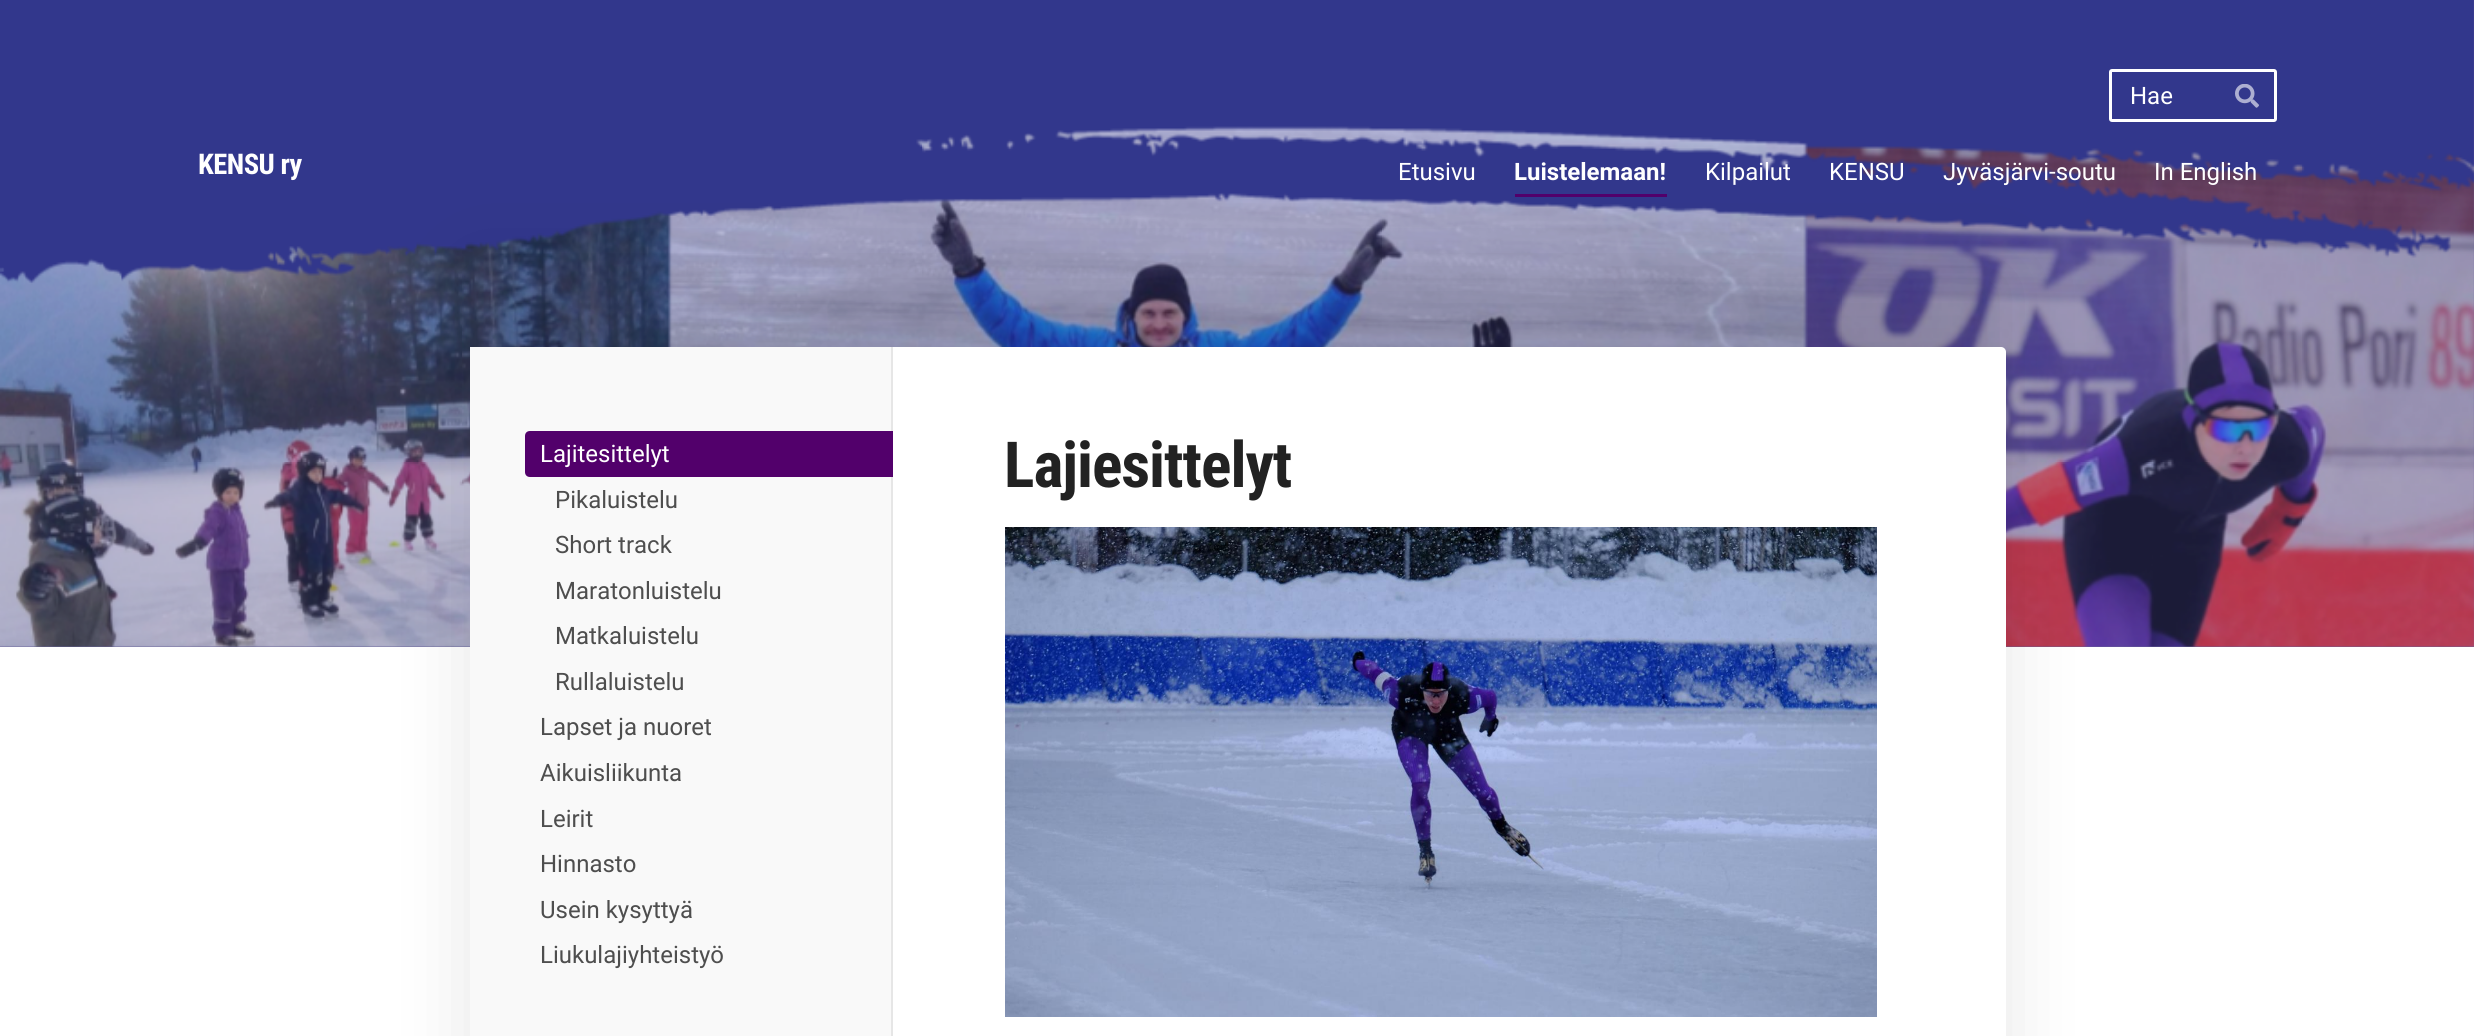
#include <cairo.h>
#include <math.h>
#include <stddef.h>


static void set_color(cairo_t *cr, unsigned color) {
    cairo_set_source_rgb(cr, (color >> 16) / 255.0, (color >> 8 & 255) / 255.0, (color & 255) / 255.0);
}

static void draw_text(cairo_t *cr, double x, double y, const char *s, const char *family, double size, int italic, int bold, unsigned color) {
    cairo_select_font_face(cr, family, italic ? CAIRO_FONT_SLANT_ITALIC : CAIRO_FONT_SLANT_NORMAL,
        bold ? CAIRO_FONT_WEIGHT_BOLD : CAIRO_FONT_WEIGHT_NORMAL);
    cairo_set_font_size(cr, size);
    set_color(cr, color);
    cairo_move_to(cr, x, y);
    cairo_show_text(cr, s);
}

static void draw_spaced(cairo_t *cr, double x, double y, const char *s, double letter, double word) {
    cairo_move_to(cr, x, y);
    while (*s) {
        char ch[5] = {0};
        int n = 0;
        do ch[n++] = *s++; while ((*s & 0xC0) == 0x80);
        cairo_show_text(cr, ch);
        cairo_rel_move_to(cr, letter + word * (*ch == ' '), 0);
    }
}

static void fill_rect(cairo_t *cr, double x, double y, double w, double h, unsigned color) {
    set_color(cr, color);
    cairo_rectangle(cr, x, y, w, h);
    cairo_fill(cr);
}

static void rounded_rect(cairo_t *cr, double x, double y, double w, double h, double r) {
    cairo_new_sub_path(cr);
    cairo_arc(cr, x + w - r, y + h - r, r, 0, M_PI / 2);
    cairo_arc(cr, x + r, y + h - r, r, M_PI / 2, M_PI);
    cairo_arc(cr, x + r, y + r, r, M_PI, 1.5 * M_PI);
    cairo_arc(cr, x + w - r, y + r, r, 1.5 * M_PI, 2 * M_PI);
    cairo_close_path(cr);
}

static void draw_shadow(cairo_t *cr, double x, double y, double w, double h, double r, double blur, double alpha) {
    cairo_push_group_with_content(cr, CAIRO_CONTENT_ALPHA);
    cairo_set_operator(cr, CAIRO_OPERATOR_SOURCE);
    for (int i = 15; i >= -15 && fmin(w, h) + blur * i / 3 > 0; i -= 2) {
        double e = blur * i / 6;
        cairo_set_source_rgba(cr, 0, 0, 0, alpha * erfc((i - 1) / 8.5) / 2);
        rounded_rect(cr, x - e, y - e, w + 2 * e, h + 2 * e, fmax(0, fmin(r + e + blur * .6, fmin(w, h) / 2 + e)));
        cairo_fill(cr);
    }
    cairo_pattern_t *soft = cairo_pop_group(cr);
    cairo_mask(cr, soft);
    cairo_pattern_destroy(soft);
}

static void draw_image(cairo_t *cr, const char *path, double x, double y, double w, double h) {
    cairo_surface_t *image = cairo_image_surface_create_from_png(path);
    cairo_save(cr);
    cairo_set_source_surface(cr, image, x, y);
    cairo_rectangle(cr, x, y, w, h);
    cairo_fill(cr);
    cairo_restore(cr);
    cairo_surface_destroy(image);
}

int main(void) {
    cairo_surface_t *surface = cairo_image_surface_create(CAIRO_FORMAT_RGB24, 2474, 1036);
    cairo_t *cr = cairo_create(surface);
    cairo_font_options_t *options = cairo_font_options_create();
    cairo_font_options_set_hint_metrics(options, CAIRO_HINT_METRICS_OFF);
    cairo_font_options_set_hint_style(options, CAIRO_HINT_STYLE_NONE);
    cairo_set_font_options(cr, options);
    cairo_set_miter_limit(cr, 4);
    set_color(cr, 0xFFFFFF);
    cairo_paint(cr);
    fill_rect(cr, 0, 0, 2474, 647, 0x686499);
    draw_image(cr, "assets/img1.png", 0, 0, 2474, 647);
    rounded_rect(cr, 2110.5, 70.5, 165, 50, 1.5);
    set_color(cr, 0xFFFFFF);
    cairo_set_line_width(cr, 3);
    cairo_stroke(cr);
    draw_text(cr, 2130, 104, "Hae", "Roboto", 24, 0, 0, 0xFFFFFF);
    draw_image(cr, "assets/img2.png", 2235, 84, 24, 24);
    cairo_select_font_face(cr, "Roboto Condensed", CAIRO_FONT_SLANT_NORMAL, CAIRO_FONT_WEIGHT_BOLD);
    cairo_set_font_size(cr, 28.5);
    draw_spaced(cr, 198, 174, "KENSU ry", -0.5, 0);
    draw_text(cr, 1398, 180, "Etusivu", "Roboto", 24, 0, 0, 0xFFFFFF);
    draw_text(cr, 1514, 180, "Luistelemaan!", "Roboto", 24, 0, 1, 0xFFFFFF);
    fill_rect(cr, 1515, 194, 152, 3, 0x52006B);
    draw_text(cr, 1705, 180, "Kilpailut", "Roboto", 24, 0, 0, 0xFFFFFF);
    draw_text(cr, 1829, 180, "KENSU", "Roboto", 24, 0, 0, 0xFFFFFF);
    draw_text(cr, 1943, 180, "Jyväsjärvi-soutu", "Roboto", 24, 0, 0, 0xFFFFFF);
    draw_text(cr, 2154, 180, "In English", "Roboto", 24, 0, 0, 0xFFFFFF);
    set_color(cr, 0x000000);
    draw_shadow(cr, 470, 272, 1536, 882, 5, 37.5, 0.1);
    set_color(cr, 0xFFFFFF);
    rounded_rect(cr, 470, 347, 1536, 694, 5);
    cairo_fill(cr);
    fill_rect(cr, 470, 347, 421, 689, 0xF9F9F9);
    fill_rect(cr, 891, 347, 2, 689, 0xE6E6E6);
    set_color(cr, 0x52006B);
    cairo_new_path(cr);
    cairo_move_to(cr, 530, 431);
    cairo_line_to(cr, 893, 431);
    cairo_line_to(cr, 893, 477);
    cairo_line_to(cr, 530, 477);
    cairo_curve_to(cr, 527, 477, 525, 475, 525, 472);
    cairo_line_to(cr, 525, 436);
    cairo_curve_to(cr, 525, 433, 527, 431, 530, 431);
    cairo_close_path(cr);
    cairo_fill(cr);
    draw_text(cr, 540, 462, "Lajitesittelyt", "Roboto", 24, 0, 0, 0xFFFFFF);
    draw_text(cr, 555, 508, "Pikaluistelu", "Roboto", 24, 0, 0, 0x4E4E4E);
    draw_text(cr, 555, 553, "Short track", "Roboto", 24, 0, 0, 0x4E4E4E);
    draw_text(cr, 555, 599, "Maratonluistelu", "Roboto", 24, 0, 0, 0x4E4E4E);
    draw_text(cr, 555, 644, "Matkaluistelu", "Roboto", 24, 0, 0, 0x4E4E4E);
    draw_text(cr, 555, 690, "Rullaluistelu", "Roboto", 24, 0, 0, 0x4E4E4E);
    draw_text(cr, 540, 735, "Lapset ja nuoret", "Roboto", 24, 0, 0, 0x4E4E4E);
    draw_text(cr, 540, 781, "Aikuisliikunta", "Roboto", 24, 0, 0, 0x4E4E4E);
    draw_text(cr, 540, 827, "Leirit", "Roboto", 24, 0, 0, 0x4E4E4E);
    draw_text(cr, 540, 872, "Hinnasto", "Roboto", 24, 0, 0, 0x4E4E4E);
    draw_text(cr, 540, 918, "Usein kysyttyä", "Roboto", 24, 0, 0, 0x4E4E4E);
    draw_text(cr, 540, 963, "Liukulajiyhteistyö", "Roboto", 24, 0, 0, 0x4E4E4E);
    cairo_select_font_face(cr, "Roboto Condensed", CAIRO_FONT_SLANT_NORMAL, CAIRO_FONT_WEIGHT_BOLD);
    cairo_set_font_size(cr, 63.5);
    set_color(cr, 0x222222);
    draw_spaced(cr, 1004, 487, "Lajiesittelyt", -1, 0);
    draw_image(cr, "assets/img3.png", 1005, 527, 872, 490);
    cairo_surface_write_to_png(surface, "output.png");
    cairo_font_options_destroy(options);
    cairo_destroy(cr);
    cairo_surface_destroy(surface);
    return 0;
}
